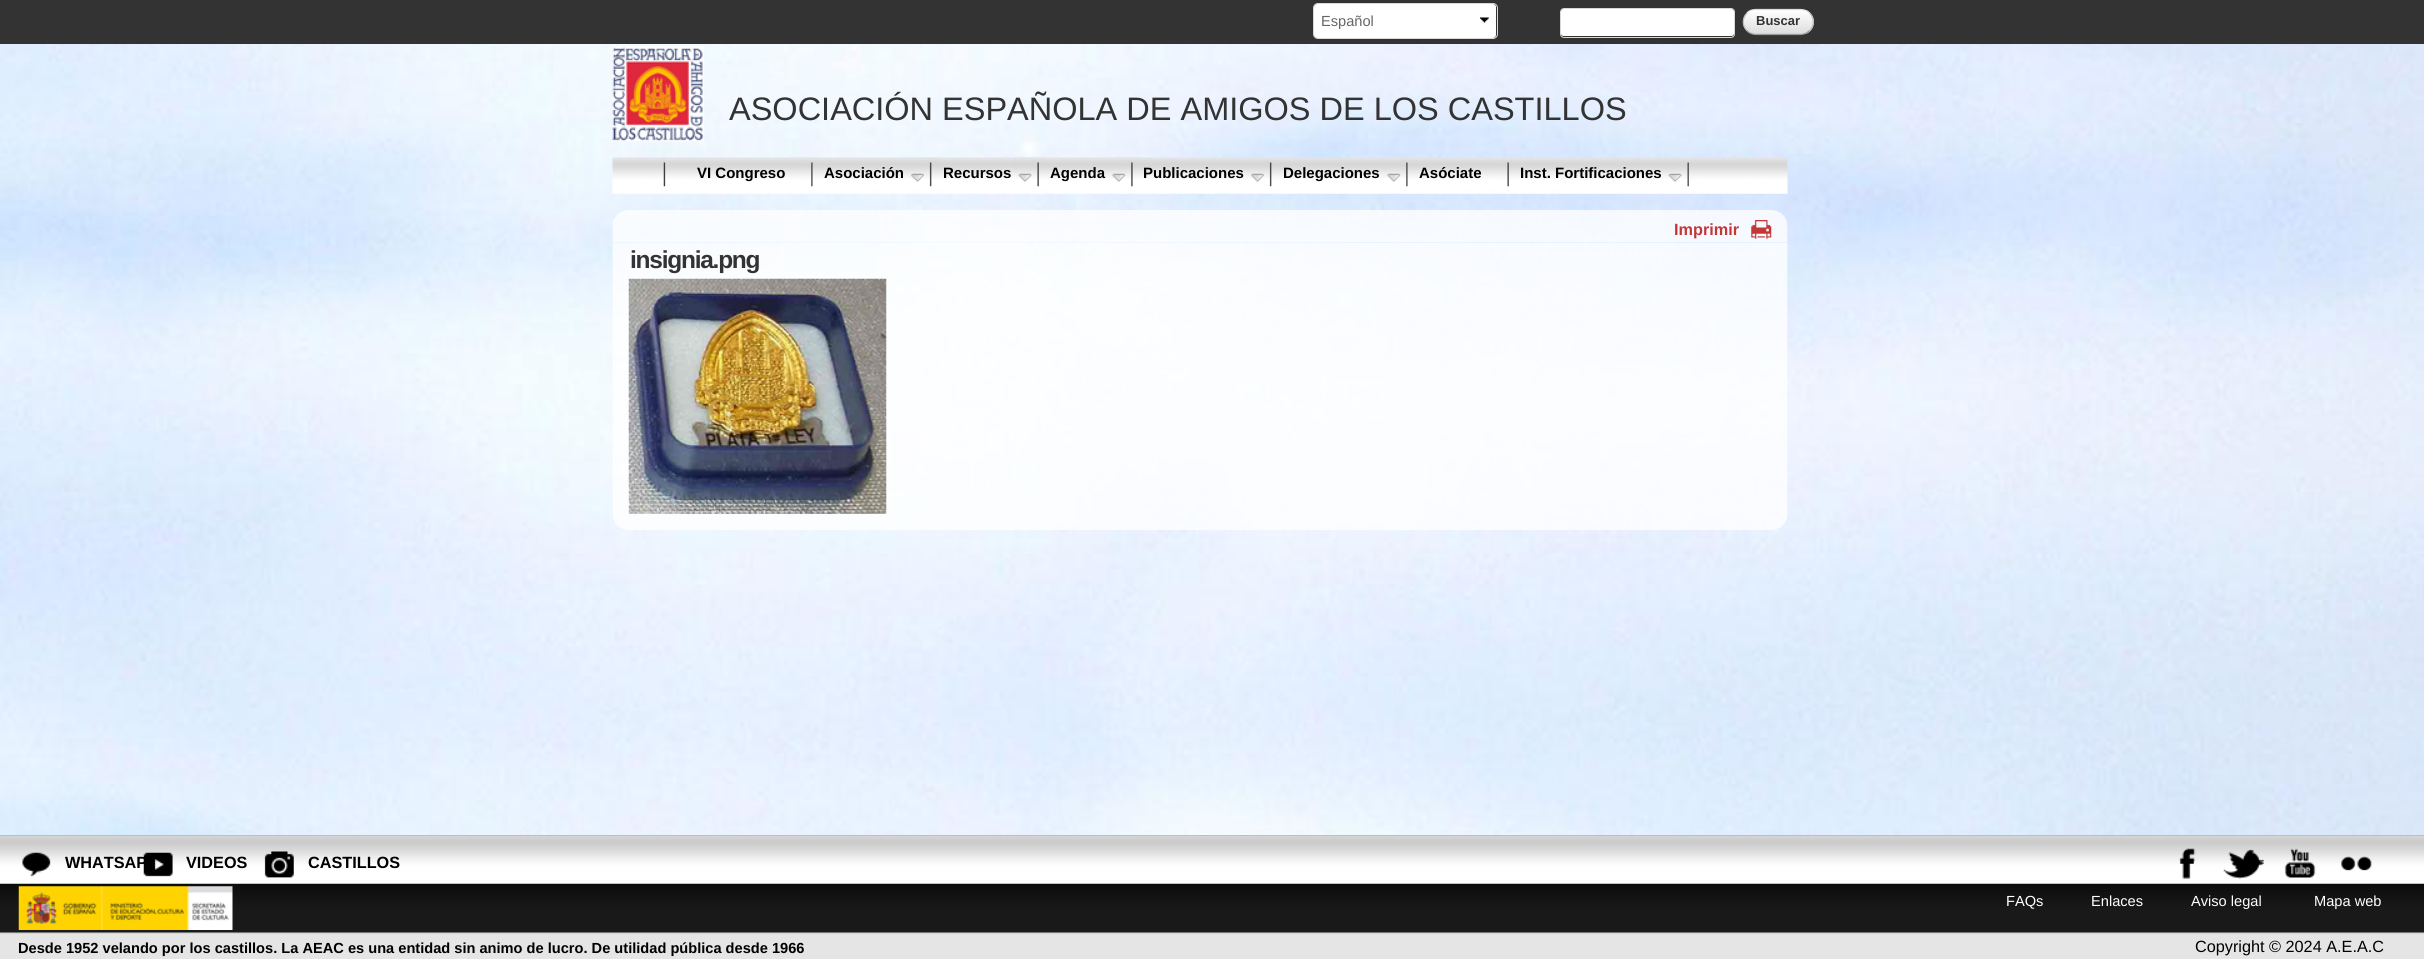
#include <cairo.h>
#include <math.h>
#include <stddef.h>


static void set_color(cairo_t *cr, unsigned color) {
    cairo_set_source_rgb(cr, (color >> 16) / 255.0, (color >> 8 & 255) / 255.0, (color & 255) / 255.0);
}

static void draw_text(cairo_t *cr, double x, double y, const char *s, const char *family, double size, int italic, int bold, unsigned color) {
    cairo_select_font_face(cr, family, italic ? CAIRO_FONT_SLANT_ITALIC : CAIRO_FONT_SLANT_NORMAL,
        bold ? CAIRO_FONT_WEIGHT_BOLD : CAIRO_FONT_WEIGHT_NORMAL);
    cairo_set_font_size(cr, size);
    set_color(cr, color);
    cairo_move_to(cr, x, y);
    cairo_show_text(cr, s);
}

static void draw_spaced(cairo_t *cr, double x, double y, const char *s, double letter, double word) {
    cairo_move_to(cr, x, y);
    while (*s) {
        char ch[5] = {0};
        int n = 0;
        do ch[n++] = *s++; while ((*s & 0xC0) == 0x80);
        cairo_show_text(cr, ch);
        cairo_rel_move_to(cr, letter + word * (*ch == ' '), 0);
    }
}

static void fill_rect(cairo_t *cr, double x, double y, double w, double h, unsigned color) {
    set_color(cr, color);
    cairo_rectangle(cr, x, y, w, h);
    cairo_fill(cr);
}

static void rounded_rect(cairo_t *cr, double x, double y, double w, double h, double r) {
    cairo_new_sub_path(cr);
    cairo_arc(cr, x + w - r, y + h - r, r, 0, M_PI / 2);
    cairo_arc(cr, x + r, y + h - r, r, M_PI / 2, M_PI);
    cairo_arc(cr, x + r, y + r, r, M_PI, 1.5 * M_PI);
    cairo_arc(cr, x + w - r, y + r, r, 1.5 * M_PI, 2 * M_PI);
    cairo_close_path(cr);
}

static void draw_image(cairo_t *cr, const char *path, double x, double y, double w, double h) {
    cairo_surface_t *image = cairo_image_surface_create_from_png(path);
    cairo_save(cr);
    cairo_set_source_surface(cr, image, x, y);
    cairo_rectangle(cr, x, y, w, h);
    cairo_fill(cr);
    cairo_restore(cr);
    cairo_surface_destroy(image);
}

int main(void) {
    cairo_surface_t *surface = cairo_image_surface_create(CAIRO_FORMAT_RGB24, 2424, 959);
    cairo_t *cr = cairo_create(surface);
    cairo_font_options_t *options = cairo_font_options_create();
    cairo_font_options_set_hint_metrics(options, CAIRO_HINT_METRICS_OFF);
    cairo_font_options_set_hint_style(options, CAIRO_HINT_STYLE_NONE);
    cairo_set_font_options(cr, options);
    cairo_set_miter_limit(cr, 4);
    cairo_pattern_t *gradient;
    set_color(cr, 0xFFFFFF);
    cairo_paint(cr);
    fill_rect(cr, 0, 0, 2424, 44, 0x333333);
    set_color(cr, 0xFFFFFF);
    rounded_rect(cr, 1314, 4, 182, 34, 3);
    cairo_fill(cr);
    draw_image(cr, "assets/img1.png", 1480, 17, 9, 6);
    rounded_rect(cr, 1313.5, 3.5, 184, 35, 4.5);
    set_color(cr, 0xD8D8D8);
    cairo_set_line_width(cr, 1);
    cairo_stroke(cr);
    draw_text(cr, 1321, 26, "Español", "Liberation Sans", 14.62, 0, 0, 0x666666);
    set_color(cr, 0xFFFFFF);
    rounded_rect(cr, 1561, 9, 173, 27, 2.5);
    cairo_fill(cr);
    rounded_rect(cr, 1560.5, 8.5, 174, 29, 3.5);
    set_color(cr, 0xD8D8D8);
    cairo_stroke(cr);
    cairo_save(cr);
    rounded_rect(cr, 1743, 9, 71, 26, 13);
    cairo_clip(cr);
    gradient = cairo_pattern_create_linear(1744, 10, 1744, 34);
    cairo_pattern_add_color_stop_rgba(gradient, 0, 1, 1, 1, 1);
    cairo_pattern_add_color_stop_rgba(gradient, 1, 0.867, 0.867, 0.867, 1);
    cairo_set_source(cr, gradient);
    cairo_pattern_destroy(gradient);
    cairo_rectangle(cr, 1743, 10, 71, 24);
    cairo_fill(cr);
    cairo_restore(cr);
    cairo_new_path(cr);
    cairo_move_to(cr, 1747, 13);
    cairo_curve_to(cr, 1749, 10.5, 1752.5, 9.5, 1755.5, 9.5);
    cairo_line_to(cr, 1800.5, 9.5);
    cairo_curve_to(cr, 1804, 9.5, 1807, 10.5, 1809.5, 13);
    set_color(cr, 0xDDDDDD);
    cairo_set_line_width(cr, 1.2);
    cairo_stroke(cr);
    cairo_new_path(cr);
    cairo_move_to(cr, 1809.5, 13);
    cairo_curve_to(cr, 1814.5, 18, 1814.5, 26, 1809.5, 30.5);
    set_color(cr, 0xBBBBBB);
    cairo_stroke(cr);
    cairo_new_path(cr);
    cairo_move_to(cr, 1809.5, 30.5);
    cairo_curve_to(cr, 1807, 33, 1804, 34.5, 1800.5, 34.5);
    cairo_line_to(cr, 1755.5, 34.5);
    cairo_curve_to(cr, 1752.5, 34.5, 1749, 33, 1747, 30.5);
    set_color(cr, 0x999999);
    cairo_stroke(cr);
    cairo_new_path(cr);
    cairo_move_to(cr, 1747, 30.5);
    cairo_curve_to(cr, 1742, 26, 1742, 18, 1747, 13);
    set_color(cr, 0xBBBBBB);
    cairo_stroke(cr);
    draw_text(cr, 1756, 25, "Buscar", "Liberation Sans", 13, 0, 1, 0x333333);
    draw_image(cr, "assets/img26.png", 0, 44, 2424, 791);
    draw_image(cr, "assets/img2.png", 612, 46, 92, 96);
    draw_text(cr, 729, 120, "ASOCIACIÓN ESPAÑOLA DE AMIGOS DE LOS CASTILLOS", "Liberation Sans", 32.5, 0, 0, 0x333333);
    draw_image(cr, "assets/img3.png", 612, 157, 1176, 37);
    draw_image(cr, "assets/img4.png", 663, 157, 3, 30);
    draw_image(cr, "assets/img5.png", 788, 157, 32, 30);
    draw_text(cr, 697, 178, "VI Congreso", "Liberation Sans", 15, 0, 1, 0x000000);
    draw_image(cr, "assets/img6.png", 906, 157, 33, 30);
    draw_text(cr, 824, 178, "Asociación", "Liberation Sans", 15, 0, 1, 0x000000);
    draw_image(cr, "assets/img7.png", 1014, 157, 32, 30);
    draw_text(cr, 943, 178, "Recursos", "Liberation Sans", 15, 0, 1, 0x000000);
    draw_image(cr, "assets/img8.png", 1108, 157, 32, 30);
    draw_text(cr, 1050, 178, "Agenda", "Liberation Sans", 15, 0, 1, 0x000000);
    draw_image(cr, "assets/img9.png", 1247, 157, 32, 30);
    draw_text(cr, 1143, 178, "Publicaciones", "Liberation Sans", 15, 0, 1, 0x000000);
    draw_image(cr, "assets/img10.png", 1383, 157, 32, 30);
    draw_text(cr, 1283, 178, "Delegaciones", "Liberation Sans", 15, 0, 1, 0x000000);
    draw_image(cr, "assets/img11.png", 1484, 157, 32, 30);
    draw_text(cr, 1419, 178, "Asóciate", "Liberation Sans", 15, 0, 1, 0x000000);
    draw_image(cr, "assets/img12.png", 1664, 157, 32, 30);
    draw_text(cr, 1520, 178, "Inst. Fortificaciones", "Liberation Sans", 15, 0, 1, 0x000000);
    draw_image(cr, "assets/img13.png", 612, 210, 1176, 33);
    draw_text(cr, 1674, 235, "Imprimir", "Liberation Sans", 16.25, 0, 1, 0xC43737);
    draw_image(cr, "assets/img14.png", 1751, 220, 21, 19);
    draw_image(cr, "assets/img15.png", 612, 242, 1176, 288);
    cairo_set_font_size(cr, 24.5);
    set_color(cr, 0x333333);
    draw_spaced(cr, 630, 268, "insignia.png", -1.25, 0);
    draw_image(cr, "assets/img16.png", 628, 278, 259, 236);
    draw_image(cr, "assets/img17.png", 0, 835, 2424, 99);
    draw_image(cr, "assets/img18.png", 22, 852, 29, 25);
    draw_text(cr, 65, 868, "WHATSAP", "Liberation Sans", 16.25, 0, 1, 0x000000);
    draw_image(cr, "assets/img19.png", 143, 852, 30, 25);
    draw_text(cr, 186, 868, "VIDEOS", "Liberation Sans", 16.25, 0, 1, 0x000000);
    draw_image(cr, "assets/img20.png", 264, 851, 30, 27);
    draw_text(cr, 308, 868, "CASTILLOS", "Liberation Sans", 16.25, 0, 1, 0x000000);
    draw_image(cr, "assets/img21.png", 2179, 848, 17, 31);
    draw_image(cr, "assets/img22.png", 2223, 849, 41, 30);
    draw_image(cr, "assets/img23.png", 2284, 848, 32, 30);
    draw_image(cr, "assets/img24.png", 2341, 856, 31, 15);
    draw_image(cr, "assets/img25.png", 18, 886, 215, 44);
    draw_text(cr, 2006, 906, "FAQs", "Liberation Sans", 14.62, 0, 0, 0xFFFFFF);
    draw_text(cr, 2091, 906, "Enlaces", "Liberation Sans", 14.62, 0, 0, 0xFFFFFF);
    draw_text(cr, 2191, 906, "Aviso legal", "Liberation Sans", 14.62, 0, 0, 0xFFFFFF);
    draw_text(cr, 2314, 906, "Mapa web", "Liberation Sans", 14.62, 0, 0, 0xFFFFFF);
    fill_rect(cr, 0, 934, 2424, 25, 0xE5E5E5);
    draw_text(cr, 18, 953, "Desde 1952 velando por los castillos. La AEAC es una entidad sin animo de lucro. De utilidad pública desde 1966", "Liberation Sans", 14.62, 0, 1, 0x000000);
    draw_text(cr, 2195, 952, "Copyright © 2024 A.E.A.C", "Liberation Sans", 16.25, 0, 0, 0x000000);
    cairo_surface_write_to_png(surface, "output.png");
    cairo_font_options_destroy(options);
    cairo_destroy(cr);
    cairo_surface_destroy(surface);
    return 0;
}
